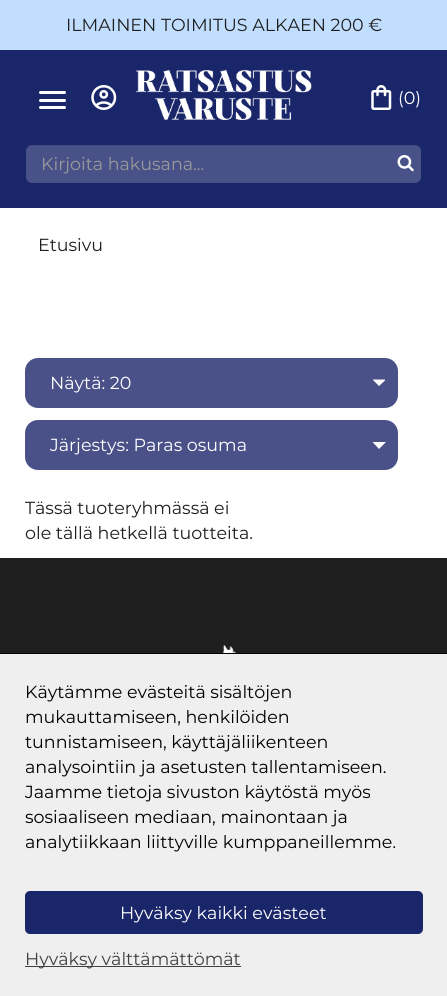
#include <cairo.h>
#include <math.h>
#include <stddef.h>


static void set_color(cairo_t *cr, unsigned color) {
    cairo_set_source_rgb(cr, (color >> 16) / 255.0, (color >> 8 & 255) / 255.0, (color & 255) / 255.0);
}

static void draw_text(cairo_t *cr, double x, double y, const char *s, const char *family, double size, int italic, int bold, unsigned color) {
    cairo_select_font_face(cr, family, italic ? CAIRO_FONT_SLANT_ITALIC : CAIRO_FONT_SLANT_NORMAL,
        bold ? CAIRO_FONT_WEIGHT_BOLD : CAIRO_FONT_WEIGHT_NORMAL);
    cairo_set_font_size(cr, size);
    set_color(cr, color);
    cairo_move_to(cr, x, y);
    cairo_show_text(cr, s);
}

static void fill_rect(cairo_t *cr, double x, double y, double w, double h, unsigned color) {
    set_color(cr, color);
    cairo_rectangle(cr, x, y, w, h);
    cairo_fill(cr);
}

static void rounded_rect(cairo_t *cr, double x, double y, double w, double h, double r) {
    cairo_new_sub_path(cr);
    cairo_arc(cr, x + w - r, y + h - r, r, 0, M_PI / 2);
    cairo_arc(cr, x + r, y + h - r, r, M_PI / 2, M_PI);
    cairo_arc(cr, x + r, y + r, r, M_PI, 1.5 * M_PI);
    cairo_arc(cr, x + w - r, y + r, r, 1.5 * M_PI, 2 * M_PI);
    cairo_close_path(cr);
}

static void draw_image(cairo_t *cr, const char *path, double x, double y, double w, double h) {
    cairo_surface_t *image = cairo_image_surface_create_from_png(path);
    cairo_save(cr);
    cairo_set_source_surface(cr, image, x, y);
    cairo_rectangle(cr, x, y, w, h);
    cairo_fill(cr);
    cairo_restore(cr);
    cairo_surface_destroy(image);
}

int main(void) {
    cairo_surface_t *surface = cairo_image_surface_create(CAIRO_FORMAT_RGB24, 447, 996);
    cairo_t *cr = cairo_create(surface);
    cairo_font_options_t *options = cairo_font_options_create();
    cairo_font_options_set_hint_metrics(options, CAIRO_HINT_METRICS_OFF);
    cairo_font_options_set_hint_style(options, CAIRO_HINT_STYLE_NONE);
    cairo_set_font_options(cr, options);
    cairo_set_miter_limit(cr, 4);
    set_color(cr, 0xFFFFFF);
    cairo_paint(cr);
    fill_rect(cr, 0, 0, 447, 50, 0xC2DEFF);
    draw_text(cr, 66, 31, "ILMAINEN TOIMITUS ALKAEN 200 €", "Montserrat", 17.5, 0, 0, 0x1F1F1F);
    fill_rect(cr, 0, 50, 447, 158, 0x1A266A);
    set_color(cr, 0xFFFFFF);
    rounded_rect(cr, 39, 91, 27, 3, 1.5);
    cairo_fill(cr);
    rounded_rect(cr, 39, 99, 27, 3, 1.5);
    cairo_fill(cr);
    rounded_rect(cr, 39, 106, 27, 3, 1.5);
    cairo_fill(cr);
    draw_image(cr, "assets/img1.png", 91, 85, 26, 25);
    draw_image(cr, "assets/img2.png", 136, 70, 176, 50);
    draw_image(cr, "assets/img3.png", 371, 85, 21, 25);
    draw_text(cr, 398, 104, "(0)", "Montserrat", 17.5, 0, 0, 0xFFFFFF);
    set_color(cr, 0x485188);
    rounded_rect(cr, 26, 145, 395, 38, 6);
    cairo_fill(cr);
    cairo_set_source_rgba(cr, 0, 0, 0, 0.07);
    cairo_new_path(cr);
    cairo_move_to(cr, 32, 146);
    cairo_line_to(cr, 415, 146);
    cairo_curve_to(cr, 418, 146, 421, 149, 421, 152);
    cairo_curve_to(cr, 421, 148, 419, 145, 415, 145);
    cairo_line_to(cr, 32, 145);
    cairo_curve_to(cr, 28, 145, 26, 148, 26, 152);
    cairo_curve_to(cr, 26, 149, 29, 146, 32, 146);
    cairo_close_path(cr);
    cairo_fill(cr);
    draw_text(cr, 41, 170, "Kirjoita hakusana...", "Montserrat", 17.5, 0, 0, 0x999999);
    draw_image(cr, "assets/img4.png", 397, 155, 17, 17);
    draw_text(cr, 38, 251, "Etusivu", "Montserrat", 17.5, 0, 0, 0x1F1F1F);
    set_color(cr, 0x495188);
    rounded_rect(cr, 25, 358, 373, 50, 13);
    cairo_fill(cr);
    cairo_save(cr);
    cairo_rectangle(cr, 373, 379, 12, 7);
    cairo_clip(cr);
    set_color(cr, 0xFFFFFF);
    cairo_new_path(cr);
    cairo_move_to(cr, 379, 386);
    cairo_line_to(cr, 372.5, 379.5);
    cairo_line_to(cr, 386, 379.5);
    cairo_close_path(cr);
    cairo_fill(cr);
    cairo_restore(cr);
    draw_text(cr, 50, 389, "Näytä: 20", "Montserrat", 17.5, 0, 0, 0xFFFFFF);
    set_color(cr, 0x495188);
    rounded_rect(cr, 25, 420, 373, 50, 13);
    cairo_fill(cr);
    set_color(cr, 0xFFFFFF);
    cairo_new_path(cr);
    cairo_move_to(cr, 379, 449);
    cairo_line_to(cr, 372.5, 442);
    cairo_line_to(cr, 386, 442);
    cairo_close_path(cr);
    cairo_fill(cr);
    draw_text(cr, 50, 451, "Järjestys: Paras osuma", "Montserrat", 17.5, 0, 0, 0xFFFFFF);
    draw_text(cr, 25, 514, "Tässä tuoteryhmässä ei", "Montserrat", 17.5, 0, 0, 0x1F1F1F);
    draw_text(cr, 25, 539, "ole tällä hetkellä tuotteita.", "Montserrat", 17.5, 0, 0, 0x1F1F1F);
    fill_rect(cr, 0, 558, 447, 95, 0x1F1F1F);
    draw_image(cr, "assets/img5.png", 222, 645, 14, 8);
    fill_rect(cr, 0, 654, 447, 342, 0xEFEFEF);
    fill_rect(cr, 0, 653, 447, 1, 0x000000);
    draw_text(cr, 25, 698, "Käytämme evästeitä sisältöjen", "Montserrat", 17.5, 0, 0, 0x000000);
    draw_text(cr, 25, 723, "mukauttamiseen, henkilöiden", "Montserrat", 17.5, 0, 0, 0x000000);
    draw_text(cr, 25, 748, "tunnistamiseen, käyttäjäliikenteen", "Montserrat", 17.5, 0, 0, 0x000000);
    draw_text(cr, 25, 773, "analysointiin ja asetusten tallentamiseen.", "Montserrat", 17.5, 0, 0, 0x000000);
    draw_text(cr, 25, 798, "Jaamme tietoja sivuston käytöstä myös", "Montserrat", 17.5, 0, 0, 0x000000);
    draw_text(cr, 25, 823, "sosiaaliseen mediaan, mainontaan ja", "Montserrat", 17.5, 0, 0, 0x000000);
    draw_text(cr, 25, 848, "analytiikkaan liittyville kumppaneillemme.", "Montserrat", 17.5, 0, 0, 0x000000);
    set_color(cr, 0x1A266A);
    rounded_rect(cr, 25, 891, 398, 43, 5);
    cairo_fill(cr);
    draw_text(cr, 120, 919, "Hyväksy kaikki evästeet", "Montserrat", 17.5, 0, 0, 0xFFFFFF);
    fill_rect(cr, 25, 966, 216, 1, 0x404040);
    draw_text(cr, 25, 965, "Hyväksy välttämättömät", "Montserrat", 17.5, 0, 0, 0x404040);
    cairo_surface_write_to_png(surface, "output.png");
    cairo_font_options_destroy(options);
    cairo_destroy(cr);
    cairo_surface_destroy(surface);
    return 0;
}
